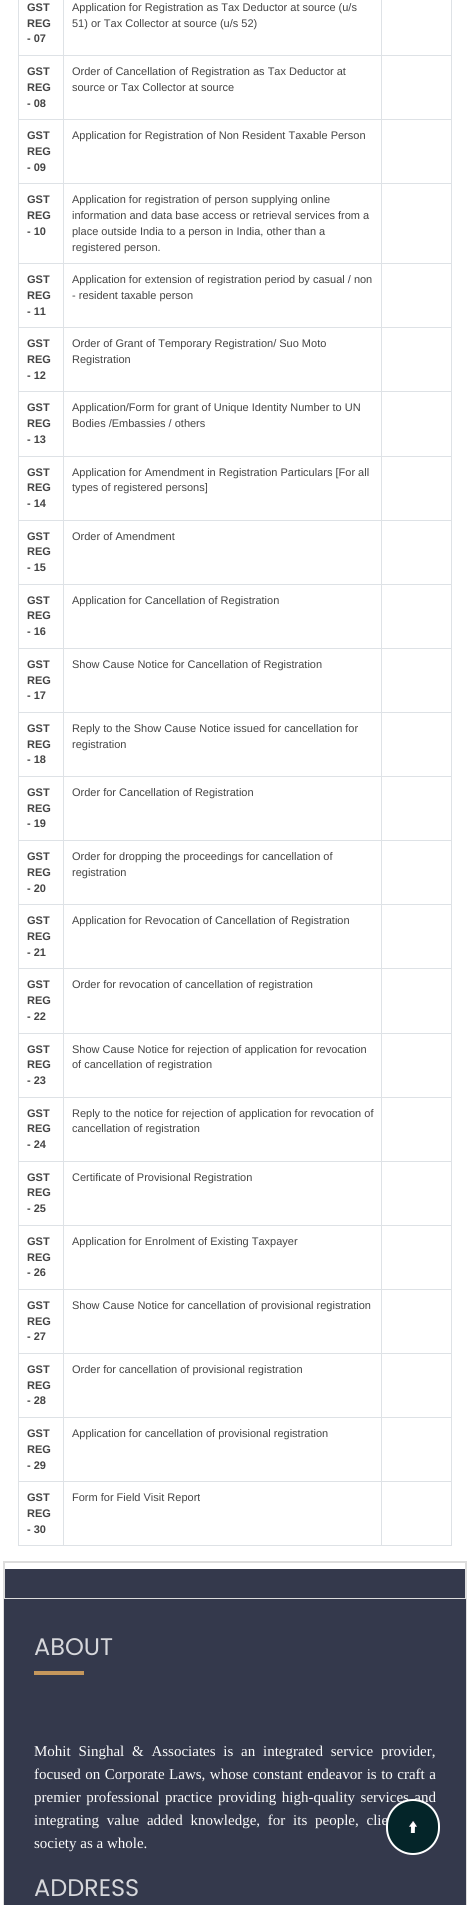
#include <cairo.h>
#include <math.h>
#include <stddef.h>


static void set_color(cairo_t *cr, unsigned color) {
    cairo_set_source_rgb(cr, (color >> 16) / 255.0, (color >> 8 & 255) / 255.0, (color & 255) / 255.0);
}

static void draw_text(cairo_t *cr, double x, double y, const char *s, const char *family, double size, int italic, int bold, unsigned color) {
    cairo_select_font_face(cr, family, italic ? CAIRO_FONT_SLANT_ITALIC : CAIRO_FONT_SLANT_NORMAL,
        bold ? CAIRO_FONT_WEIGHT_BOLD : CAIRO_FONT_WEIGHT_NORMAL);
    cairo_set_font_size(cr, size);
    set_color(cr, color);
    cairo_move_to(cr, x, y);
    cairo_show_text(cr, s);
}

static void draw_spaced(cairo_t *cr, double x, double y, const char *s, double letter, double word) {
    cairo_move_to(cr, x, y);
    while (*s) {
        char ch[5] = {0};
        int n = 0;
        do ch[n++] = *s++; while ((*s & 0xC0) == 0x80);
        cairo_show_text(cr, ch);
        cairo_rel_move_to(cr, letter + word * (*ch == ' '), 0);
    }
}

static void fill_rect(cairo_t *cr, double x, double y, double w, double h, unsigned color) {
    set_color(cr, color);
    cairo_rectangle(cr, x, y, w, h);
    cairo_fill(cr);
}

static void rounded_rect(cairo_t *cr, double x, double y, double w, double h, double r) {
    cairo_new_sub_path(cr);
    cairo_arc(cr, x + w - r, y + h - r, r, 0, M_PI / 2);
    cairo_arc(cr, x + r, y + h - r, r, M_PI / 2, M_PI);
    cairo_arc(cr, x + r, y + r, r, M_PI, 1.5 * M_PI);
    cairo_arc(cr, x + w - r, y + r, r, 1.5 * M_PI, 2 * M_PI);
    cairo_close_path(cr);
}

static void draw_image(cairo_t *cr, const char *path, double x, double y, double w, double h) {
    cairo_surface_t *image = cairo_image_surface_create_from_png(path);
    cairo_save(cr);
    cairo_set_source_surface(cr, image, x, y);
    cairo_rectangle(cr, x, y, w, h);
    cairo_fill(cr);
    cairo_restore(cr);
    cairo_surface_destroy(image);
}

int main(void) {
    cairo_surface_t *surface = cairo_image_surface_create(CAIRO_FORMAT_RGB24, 470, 1905);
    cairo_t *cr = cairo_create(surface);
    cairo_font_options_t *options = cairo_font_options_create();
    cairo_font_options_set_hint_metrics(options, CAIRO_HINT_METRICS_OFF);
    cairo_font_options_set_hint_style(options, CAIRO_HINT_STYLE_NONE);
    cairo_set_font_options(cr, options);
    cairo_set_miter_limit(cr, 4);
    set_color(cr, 0xFFFFFF);
    cairo_paint(cr);
    fill_rect(cr, 451, 0, 1, 1546, 0xDEE2E6);
    fill_rect(cr, 18, 1545, 434, 1, 0xDEE2E6);
    fill_rect(cr, 18, 0, 1, 1546, 0xDEE2E6);
    draw_text(cr, 27, 11, "GST", "Liberation Sans", 11, 0, 1, 0x444444);
    draw_text(cr, 27, 27, "REG", "Liberation Sans", 11, 0, 1, 0x444444);
    draw_text(cr, 27, 42, "- 07", "Liberation Sans", 11, 0, 1, 0x444444);
    fill_rect(cr, 381, 55, 70, 1, 0xDEE2E6);
    fill_rect(cr, 381, 119, 70, 1, 0xDEE2E6);
    fill_rect(cr, 381, 183, 70, 1, 0xDEE2E6);
    fill_rect(cr, 381, 263, 70, 1, 0xDEE2E6);
    fill_rect(cr, 381, 327, 70, 1, 0xDEE2E6);
    fill_rect(cr, 381, 391, 70, 1, 0xDEE2E6);
    fill_rect(cr, 381, 456, 70, 1, 0xDEE2E6);
    fill_rect(cr, 381, 520, 70, 1, 0xDEE2E6);
    fill_rect(cr, 381, 584, 70, 1, 0xDEE2E6);
    fill_rect(cr, 381, 648, 70, 1, 0xDEE2E6);
    fill_rect(cr, 381, 712, 70, 1, 0xDEE2E6);
    fill_rect(cr, 381, 776, 70, 1, 0xDEE2E6);
    fill_rect(cr, 381, 840, 70, 1, 0xDEE2E6);
    fill_rect(cr, 381, 904, 70, 1, 0xDEE2E6);
    fill_rect(cr, 381, 968, 70, 1, 0xDEE2E6);
    fill_rect(cr, 381, 1033, 70, 1, 0xDEE2E6);
    fill_rect(cr, 381, 1097, 70, 1, 0xDEE2E6);
    fill_rect(cr, 381, 1161, 70, 1, 0xDEE2E6);
    fill_rect(cr, 381, 1225, 70, 1, 0xDEE2E6);
    fill_rect(cr, 381, 1289, 70, 1, 0xDEE2E6);
    fill_rect(cr, 381, 1353, 70, 1, 0xDEE2E6);
    fill_rect(cr, 381, 1417, 70, 1, 0xDEE2E6);
    fill_rect(cr, 381, 1481, 70, 1, 0xDEE2E6);
    fill_rect(cr, 381, 1481, 1, 64, 0xDEE2E6);
    fill_rect(cr, 63, 1481, 319, 1, 0xDEE2E6);
    fill_rect(cr, 381, 1417, 1, 65, 0xDEE2E6);
    fill_rect(cr, 63, 1417, 319, 1, 0xDEE2E6);
    fill_rect(cr, 381, 1353, 1, 65, 0xDEE2E6);
    fill_rect(cr, 63, 1353, 319, 1, 0xDEE2E6);
    fill_rect(cr, 381, 1289, 1, 65, 0xDEE2E6);
    fill_rect(cr, 63, 1289, 319, 1, 0xDEE2E6);
    fill_rect(cr, 381, 1225, 1, 65, 0xDEE2E6);
    fill_rect(cr, 63, 1225, 319, 1, 0xDEE2E6);
    fill_rect(cr, 381, 1161, 1, 65, 0xDEE2E6);
    fill_rect(cr, 63, 1161, 319, 1, 0xDEE2E6);
    fill_rect(cr, 381, 1097, 1, 65, 0xDEE2E6);
    fill_rect(cr, 63, 1097, 319, 1, 0xDEE2E6);
    fill_rect(cr, 381, 1033, 1, 65, 0xDEE2E6);
    fill_rect(cr, 63, 1033, 319, 1, 0xDEE2E6);
    fill_rect(cr, 381, 968, 1, 66, 0xDEE2E6);
    fill_rect(cr, 63, 968, 319, 1, 0xDEE2E6);
    fill_rect(cr, 381, 904, 1, 65, 0xDEE2E6);
    fill_rect(cr, 63, 904, 319, 1, 0xDEE2E6);
    fill_rect(cr, 381, 840, 1, 65, 0xDEE2E6);
    fill_rect(cr, 63, 840, 319, 1, 0xDEE2E6);
    fill_rect(cr, 381, 776, 1, 65, 0xDEE2E6);
    fill_rect(cr, 63, 776, 319, 1, 0xDEE2E6);
    fill_rect(cr, 381, 712, 1, 65, 0xDEE2E6);
    fill_rect(cr, 63, 712, 319, 1, 0xDEE2E6);
    fill_rect(cr, 381, 648, 1, 65, 0xDEE2E6);
    fill_rect(cr, 63, 648, 319, 1, 0xDEE2E6);
    fill_rect(cr, 381, 584, 1, 65, 0xDEE2E6);
    fill_rect(cr, 63, 584, 319, 1, 0xDEE2E6);
    fill_rect(cr, 381, 520, 1, 65, 0xDEE2E6);
    fill_rect(cr, 63, 520, 319, 1, 0xDEE2E6);
    fill_rect(cr, 381, 456, 1, 65, 0xDEE2E6);
    fill_rect(cr, 63, 456, 319, 1, 0xDEE2E6);
    fill_rect(cr, 381, 391, 1, 66, 0xDEE2E6);
    fill_rect(cr, 63, 391, 319, 1, 0xDEE2E6);
    fill_rect(cr, 381, 327, 1, 65, 0xDEE2E6);
    fill_rect(cr, 63, 327, 319, 1, 0xDEE2E6);
    fill_rect(cr, 381, 263, 1, 65, 0xDEE2E6);
    fill_rect(cr, 63, 263, 319, 1, 0xDEE2E6);
    fill_rect(cr, 381, 183, 1, 81, 0xDEE2E6);
    fill_rect(cr, 63, 183, 319, 1, 0xDEE2E6);
    fill_rect(cr, 381, 119, 1, 65, 0xDEE2E6);
    fill_rect(cr, 63, 119, 319, 1, 0xDEE2E6);
    fill_rect(cr, 381, 55, 1, 65, 0xDEE2E6);
    fill_rect(cr, 63, 55, 319, 1, 0xDEE2E6);
    fill_rect(cr, 63, 1481, 1, 64, 0xDEE2E6);
    fill_rect(cr, 19, 1481, 45, 1, 0xDEE2E6);
    fill_rect(cr, 63, 1417, 1, 65, 0xDEE2E6);
    fill_rect(cr, 19, 1417, 45, 1, 0xDEE2E6);
    fill_rect(cr, 63, 1353, 1, 65, 0xDEE2E6);
    fill_rect(cr, 19, 1353, 45, 1, 0xDEE2E6);
    fill_rect(cr, 63, 1289, 1, 65, 0xDEE2E6);
    fill_rect(cr, 19, 1289, 45, 1, 0xDEE2E6);
    fill_rect(cr, 63, 1225, 1, 65, 0xDEE2E6);
    fill_rect(cr, 19, 1225, 45, 1, 0xDEE2E6);
    fill_rect(cr, 63, 1161, 1, 65, 0xDEE2E6);
    fill_rect(cr, 19, 1161, 45, 1, 0xDEE2E6);
    fill_rect(cr, 63, 1097, 1, 65, 0xDEE2E6);
    fill_rect(cr, 19, 1097, 45, 1, 0xDEE2E6);
    fill_rect(cr, 63, 1033, 1, 65, 0xDEE2E6);
    fill_rect(cr, 19, 1033, 45, 1, 0xDEE2E6);
    fill_rect(cr, 63, 968, 1, 66, 0xDEE2E6);
    fill_rect(cr, 19, 968, 45, 1, 0xDEE2E6);
    fill_rect(cr, 63, 904, 1, 65, 0xDEE2E6);
    fill_rect(cr, 19, 904, 45, 1, 0xDEE2E6);
    fill_rect(cr, 63, 840, 1, 65, 0xDEE2E6);
    fill_rect(cr, 19, 840, 45, 1, 0xDEE2E6);
    fill_rect(cr, 63, 776, 1, 65, 0xDEE2E6);
    fill_rect(cr, 19, 776, 45, 1, 0xDEE2E6);
    fill_rect(cr, 63, 712, 1, 65, 0xDEE2E6);
    fill_rect(cr, 19, 712, 45, 1, 0xDEE2E6);
    fill_rect(cr, 63, 648, 1, 65, 0xDEE2E6);
    fill_rect(cr, 19, 648, 45, 1, 0xDEE2E6);
    fill_rect(cr, 63, 584, 1, 65, 0xDEE2E6);
    fill_rect(cr, 19, 584, 45, 1, 0xDEE2E6);
    fill_rect(cr, 63, 520, 1, 65, 0xDEE2E6);
    fill_rect(cr, 19, 520, 45, 1, 0xDEE2E6);
    fill_rect(cr, 63, 456, 1, 65, 0xDEE2E6);
    fill_rect(cr, 19, 456, 45, 1, 0xDEE2E6);
    fill_rect(cr, 63, 391, 1, 66, 0xDEE2E6);
    fill_rect(cr, 19, 391, 45, 1, 0xDEE2E6);
    fill_rect(cr, 63, 327, 1, 65, 0xDEE2E6);
    fill_rect(cr, 19, 327, 45, 1, 0xDEE2E6);
    fill_rect(cr, 63, 263, 1, 65, 0xDEE2E6);
    fill_rect(cr, 19, 263, 45, 1, 0xDEE2E6);
    fill_rect(cr, 63, 183, 1, 81, 0xDEE2E6);
    fill_rect(cr, 19, 183, 45, 1, 0xDEE2E6);
    fill_rect(cr, 63, 119, 1, 65, 0xDEE2E6);
    fill_rect(cr, 19, 119, 45, 1, 0xDEE2E6);
    fill_rect(cr, 63, 55, 1, 65, 0xDEE2E6);
    fill_rect(cr, 19, 55, 45, 1, 0xDEE2E6);
    fill_rect(cr, 63, 0, 1, 56, 0xDEE2E6);
    draw_text(cr, 72, 11, "Application for Registration as Tax Deductor at source (u/s", "Liberation Sans", 11, 0, 0, 0x444444);
    draw_text(cr, 72, 27, "51) or Tax Collector at source (u/s 52)", "Liberation Sans", 11, 0, 0, 0x444444);
    fill_rect(cr, 381, 0, 1, 56, 0xDEE2E6);
    draw_text(cr, 27, 75, "GST", "Liberation Sans", 11, 0, 1, 0x444444);
    draw_text(cr, 27, 91, "REG", "Liberation Sans", 11, 0, 1, 0x444444);
    draw_text(cr, 27, 107, "- 08", "Liberation Sans", 11, 0, 1, 0x444444);
    draw_text(cr, 72, 75, "Order of Cancellation of Registration as Tax Deductor at", "Liberation Sans", 11, 0, 0, 0x444444);
    draw_text(cr, 72, 91, "source or Tax Collector at source", "Liberation Sans", 11, 0, 0, 0x444444);
    draw_text(cr, 27, 139, "GST", "Liberation Sans", 11, 0, 1, 0x444444);
    draw_text(cr, 27, 155, "REG", "Liberation Sans", 11, 0, 1, 0x444444);
    draw_text(cr, 27, 171, "- 09", "Liberation Sans", 11, 0, 1, 0x444444);
    draw_text(cr, 72, 139, "Application for Registration of Non Resident Taxable Person", "Liberation Sans", 11, 0, 0, 0x444444);
    draw_text(cr, 27, 203, "GST", "Liberation Sans", 11, 0, 1, 0x444444);
    draw_text(cr, 27, 219, "REG", "Liberation Sans", 11, 0, 1, 0x444444);
    draw_text(cr, 27, 235, "- 10", "Liberation Sans", 11, 0, 1, 0x444444);
    draw_text(cr, 72, 203, "Application for registration of person supplying online", "Liberation Sans", 11, 0, 0, 0x444444);
    draw_text(cr, 72, 219, "information and data base access or retrieval services from a", "Liberation Sans", 11, 0, 0, 0x444444);
    draw_text(cr, 72, 235, "place outside India to a person in India, other than a", "Liberation Sans", 11, 0, 0, 0x444444);
    draw_text(cr, 72, 251, "registered person.", "Liberation Sans", 11, 0, 0, 0x444444);
    draw_text(cr, 27, 283, "GST", "Liberation Sans", 11, 0, 1, 0x444444);
    draw_text(cr, 27, 299, "REG", "Liberation Sans", 11, 0, 1, 0x444444);
    draw_text(cr, 27, 315, "- 11", "Liberation Sans", 11, 0, 1, 0x444444);
    draw_text(cr, 72, 283, "Application for extension of registration period by casual / non", "Liberation Sans", 11, 0, 0, 0x444444);
    draw_text(cr, 72, 299, "- resident taxable person", "Liberation Sans", 11, 0, 0, 0x444444);
    draw_text(cr, 27, 347, "GST", "Liberation Sans", 11, 0, 1, 0x444444);
    draw_text(cr, 27, 363, "REG", "Liberation Sans", 11, 0, 1, 0x444444);
    draw_text(cr, 27, 379, "- 12", "Liberation Sans", 11, 0, 1, 0x444444);
    draw_text(cr, 72, 347, "Order of Grant of Temporary Registration/ Suo Moto", "Liberation Sans", 11, 0, 0, 0x444444);
    draw_text(cr, 72, 363, "Registration", "Liberation Sans", 11, 0, 0, 0x444444);
    draw_text(cr, 27, 411, "GST", "Liberation Sans", 11, 0, 1, 0x444444);
    draw_text(cr, 27, 427, "REG", "Liberation Sans", 11, 0, 1, 0x444444);
    draw_text(cr, 27, 443, "- 13", "Liberation Sans", 11, 0, 1, 0x444444);
    draw_text(cr, 72, 411, "Application/Form for grant of Unique Identity Number to UN", "Liberation Sans", 11, 0, 0, 0x444444);
    draw_text(cr, 72, 427, "Bodies /Embassies / others", "Liberation Sans", 11, 0, 0, 0x444444);
    draw_text(cr, 27, 476, "GST", "Liberation Sans", 11, 0, 1, 0x444444);
    draw_text(cr, 27, 491, "REG", "Liberation Sans", 11, 0, 1, 0x444444);
    draw_text(cr, 27, 507, "- 14", "Liberation Sans", 11, 0, 1, 0x444444);
    draw_text(cr, 72, 476, "Application for Amendment in Registration Particulars [For all", "Liberation Sans", 11, 0, 0, 0x444444);
    draw_text(cr, 72, 491, "types of registered persons]", "Liberation Sans", 11, 0, 0, 0x444444);
    draw_text(cr, 27, 540, "GST", "Liberation Sans", 11, 0, 1, 0x444444);
    draw_text(cr, 27, 555, "REG", "Liberation Sans", 11, 0, 1, 0x444444);
    draw_text(cr, 27, 571, "- 15", "Liberation Sans", 11, 0, 1, 0x444444);
    draw_text(cr, 72, 540, "Order of Amendment", "Liberation Sans", 11, 0, 0, 0x444444);
    draw_text(cr, 27, 604, "GST", "Liberation Sans", 11, 0, 1, 0x444444);
    draw_text(cr, 27, 619, "REG", "Liberation Sans", 11, 0, 1, 0x444444);
    draw_text(cr, 27, 635, "- 16", "Liberation Sans", 11, 0, 1, 0x444444);
    draw_text(cr, 72, 604, "Application for Cancellation of Registration", "Liberation Sans", 11, 0, 0, 0x444444);
    draw_text(cr, 27, 668, "GST", "Liberation Sans", 11, 0, 1, 0x444444);
    draw_text(cr, 27, 684, "REG", "Liberation Sans", 11, 0, 1, 0x444444);
    draw_text(cr, 27, 699, "- 17", "Liberation Sans", 11, 0, 1, 0x444444);
    draw_text(cr, 72, 668, "Show Cause Notice for Cancellation of Registration", "Liberation Sans", 11, 0, 0, 0x444444);
    draw_text(cr, 27, 732, "GST", "Liberation Sans", 11, 0, 1, 0x444444);
    draw_text(cr, 27, 748, "REG", "Liberation Sans", 11, 0, 1, 0x444444);
    draw_text(cr, 27, 763, "- 18", "Liberation Sans", 11, 0, 1, 0x444444);
    draw_text(cr, 72, 732, "Reply to the Show Cause Notice issued for cancellation for", "Liberation Sans", 11, 0, 0, 0x444444);
    draw_text(cr, 72, 748, "registration", "Liberation Sans", 11, 0, 0, 0x444444);
    draw_text(cr, 27, 796, "GST", "Liberation Sans", 11, 0, 1, 0x444444);
    draw_text(cr, 27, 812, "REG", "Liberation Sans", 11, 0, 1, 0x444444);
    draw_text(cr, 27, 827, "- 19", "Liberation Sans", 11, 0, 1, 0x444444);
    draw_text(cr, 72, 796, "Order for Cancellation of Registration", "Liberation Sans", 11, 0, 0, 0x444444);
    draw_text(cr, 27, 860, "GST", "Liberation Sans", 11, 0, 1, 0x444444);
    draw_text(cr, 27, 876, "REG", "Liberation Sans", 11, 0, 1, 0x444444);
    draw_text(cr, 27, 892, "- 20", "Liberation Sans", 11, 0, 1, 0x444444);
    draw_text(cr, 72, 860, "Order for dropping the proceedings for cancellation of", "Liberation Sans", 11, 0, 0, 0x444444);
    draw_text(cr, 72, 876, "registration", "Liberation Sans", 11, 0, 0, 0x444444);
    draw_text(cr, 27, 924, "GST", "Liberation Sans", 11, 0, 1, 0x444444);
    draw_text(cr, 27, 940, "REG", "Liberation Sans", 11, 0, 1, 0x444444);
    draw_text(cr, 27, 956, "- 21", "Liberation Sans", 11, 0, 1, 0x444444);
    draw_text(cr, 72, 924, "Application for Revocation of Cancellation of Registration", "Liberation Sans", 11, 0, 0, 0x444444);
    draw_text(cr, 27, 988, "GST", "Liberation Sans", 11, 0, 1, 0x444444);
    draw_text(cr, 27, 1004, "REG", "Liberation Sans", 11, 0, 1, 0x444444);
    draw_text(cr, 27, 1020, "- 22", "Liberation Sans", 11, 0, 1, 0x444444);
    draw_text(cr, 72, 988, "Order for revocation of cancellation of registration", "Liberation Sans", 11, 0, 0, 0x444444);
    draw_text(cr, 27, 1053, "GST", "Liberation Sans", 11, 0, 1, 0x444444);
    draw_text(cr, 27, 1068, "REG", "Liberation Sans", 11, 0, 1, 0x444444);
    draw_text(cr, 27, 1084, "- 23", "Liberation Sans", 11, 0, 1, 0x444444);
    draw_text(cr, 72, 1053, "Show Cause Notice for rejection of application for revocation", "Liberation Sans", 11, 0, 0, 0x444444);
    draw_text(cr, 72, 1068, "of cancellation of registration", "Liberation Sans", 11, 0, 0, 0x444444);
    draw_text(cr, 27, 1117, "GST", "Liberation Sans", 11, 0, 1, 0x444444);
    draw_text(cr, 27, 1132, "REG", "Liberation Sans", 11, 0, 1, 0x444444);
    draw_text(cr, 27, 1148, "- 24", "Liberation Sans", 11, 0, 1, 0x444444);
    draw_text(cr, 72, 1117, "Reply to the notice for rejection of application for revocation of", "Liberation Sans", 11, 0, 0, 0x444444);
    draw_text(cr, 72, 1132, "cancellation of registration", "Liberation Sans", 11, 0, 0, 0x444444);
    draw_text(cr, 27, 1181, "GST", "Liberation Sans", 11, 0, 1, 0x444444);
    draw_text(cr, 27, 1196, "REG", "Liberation Sans", 11, 0, 1, 0x444444);
    draw_text(cr, 27, 1212, "- 25", "Liberation Sans", 11, 0, 1, 0x444444);
    draw_text(cr, 72, 1181, "Certificate of Provisional Registration", "Liberation Sans", 11, 0, 0, 0x444444);
    draw_text(cr, 27, 1245, "GST", "Liberation Sans", 11, 0, 1, 0x444444);
    draw_text(cr, 27, 1261, "REG", "Liberation Sans", 11, 0, 1, 0x444444);
    draw_text(cr, 27, 1276, "- 26", "Liberation Sans", 11, 0, 1, 0x444444);
    draw_text(cr, 72, 1245, "Application for Enrolment of Existing Taxpayer", "Liberation Sans", 11, 0, 0, 0x444444);
    draw_text(cr, 27, 1309, "GST", "Liberation Sans", 11, 0, 1, 0x444444);
    draw_text(cr, 27, 1325, "REG", "Liberation Sans", 11, 0, 1, 0x444444);
    draw_text(cr, 27, 1340, "- 27", "Liberation Sans", 11, 0, 1, 0x444444);
    draw_text(cr, 72, 1309, "Show Cause Notice for cancellation of provisional registration", "Liberation Sans", 11, 0, 0, 0x444444);
    draw_text(cr, 27, 1373, "GST", "Liberation Sans", 11, 0, 1, 0x444444);
    draw_text(cr, 27, 1389, "REG", "Liberation Sans", 11, 0, 1, 0x444444);
    draw_text(cr, 27, 1404, "- 28", "Liberation Sans", 11, 0, 1, 0x444444);
    draw_text(cr, 72, 1373, "Order for cancellation of provisional registration", "Liberation Sans", 11, 0, 0, 0x444444);
    draw_text(cr, 27, 1437, "GST", "Liberation Sans", 11, 0, 1, 0x444444);
    draw_text(cr, 27, 1453, "REG", "Liberation Sans", 11, 0, 1, 0x444444);
    draw_text(cr, 27, 1469, "- 29", "Liberation Sans", 11, 0, 1, 0x444444);
    draw_text(cr, 72, 1437, "Application for cancellation of provisional registration", "Liberation Sans", 11, 0, 0, 0x444444);
    draw_text(cr, 27, 1501, "GST", "Liberation Sans", 11, 0, 1, 0x444444);
    draw_text(cr, 27, 1517, "REG", "Liberation Sans", 11, 0, 1, 0x444444);
    draw_text(cr, 27, 1533, "- 30", "Liberation Sans", 11, 0, 1, 0x444444);
    draw_text(cr, 72, 1501, "Form for Field Visit Report", "Liberation Sans", 11, 0, 0, 0x444444);
    fill_rect(cr, 3, 1561, 464, 1, 0xDDDDDD);
    fill_rect(cr, 466, 1561, 1, 344, 0xDDDDDD);
    fill_rect(cr, 3, 1561, 1, 344, 0xDDDDDD);
    fill_rect(cr, 4, 1562, 462, 1, 0xDDDDDD);
    fill_rect(cr, 4, 1569, 462, 336, 0x34394C);
    fill_rect(cr, 465, 1562, 1, 37, 0xDDDDDD);
    fill_rect(cr, 4, 1598, 462, 1, 0xDDDDDD);
    fill_rect(cr, 4, 1562, 1, 37, 0xDDDDDD);
    draw_text(cr, 34, 1655, "ABOUT", "Poppins", 24, 0, 0, 0xD6D7DB);
    fill_rect(cr, 34, 1671, 50, 4, 0xC5975C);
    cairo_select_font_face(cr, "Liberation Serif", CAIRO_FONT_SLANT_NORMAL, CAIRO_FONT_WEIGHT_NORMAL);
    cairo_set_font_size(cr, 15);
    set_color(cr, 0xFCFCFC);
    draw_spaced(cr, 34, 1756, "Mohit Singhal & Associates is an integrated service provider,", 0, 4);
    draw_spaced(cr, 34, 1779, "focused on Corporate Laws, whose constant endeavor is to craft a", 0, 0.75);
    draw_spaced(cr, 34, 1802, "premier professional practice providing high-quality services and", 0, 1.75);
    draw_spaced(cr, 34, 1825, "integrating value added knowledge, for its people, clie", 0, 4);
    draw_text(cr, 34, 1848, "society as a whole.", "Liberation Serif", 15, 0, 0, 0xFCFCFC);
    draw_text(cr, 34, 1896, "ADDRESS", "Poppins", 24, 0, 0, 0xD6D7DB);
    set_color(cr, 0x042529);
    rounded_rect(cr, 387, 1800, 52, 54, 26);
    cairo_fill_preserve(cr);
    set_color(cr, 0xFFFFFF);
    cairo_stroke(cr);
    draw_image(cr, "assets/img1.png", 409, 1821, 8, 12);
    cairo_surface_write_to_png(surface, "output.png");
    cairo_font_options_destroy(options);
    cairo_destroy(cr);
    cairo_surface_destroy(surface);
    return 0;
}
